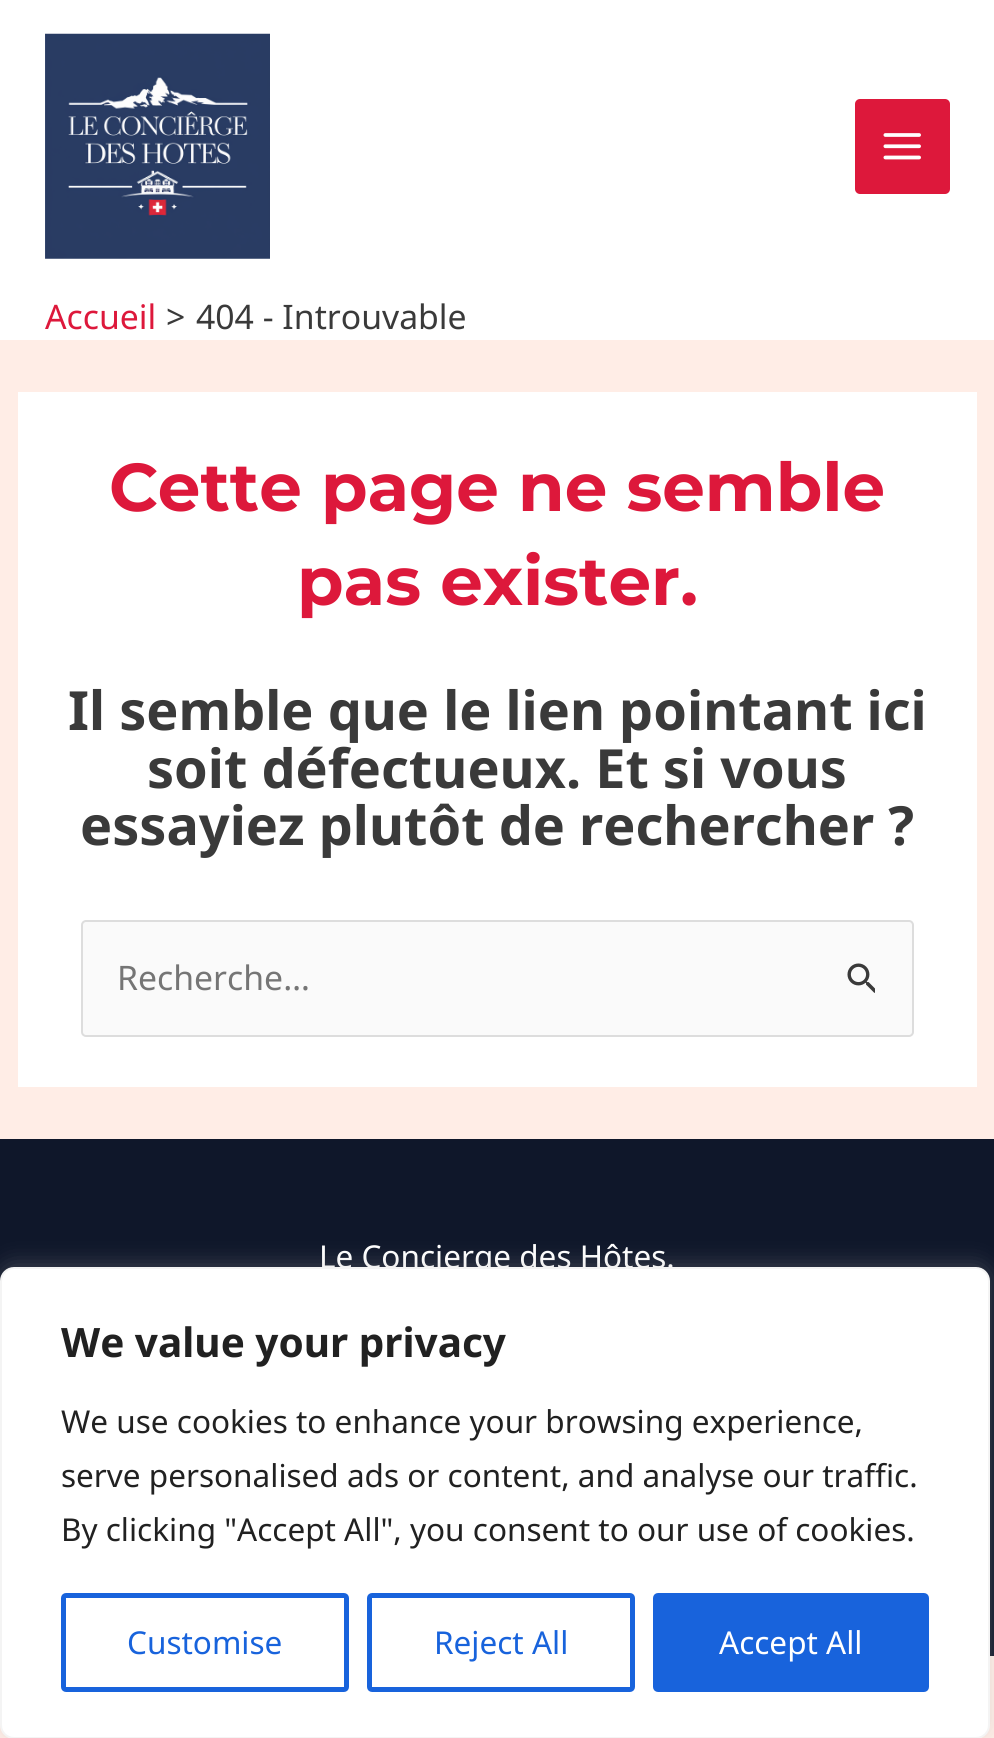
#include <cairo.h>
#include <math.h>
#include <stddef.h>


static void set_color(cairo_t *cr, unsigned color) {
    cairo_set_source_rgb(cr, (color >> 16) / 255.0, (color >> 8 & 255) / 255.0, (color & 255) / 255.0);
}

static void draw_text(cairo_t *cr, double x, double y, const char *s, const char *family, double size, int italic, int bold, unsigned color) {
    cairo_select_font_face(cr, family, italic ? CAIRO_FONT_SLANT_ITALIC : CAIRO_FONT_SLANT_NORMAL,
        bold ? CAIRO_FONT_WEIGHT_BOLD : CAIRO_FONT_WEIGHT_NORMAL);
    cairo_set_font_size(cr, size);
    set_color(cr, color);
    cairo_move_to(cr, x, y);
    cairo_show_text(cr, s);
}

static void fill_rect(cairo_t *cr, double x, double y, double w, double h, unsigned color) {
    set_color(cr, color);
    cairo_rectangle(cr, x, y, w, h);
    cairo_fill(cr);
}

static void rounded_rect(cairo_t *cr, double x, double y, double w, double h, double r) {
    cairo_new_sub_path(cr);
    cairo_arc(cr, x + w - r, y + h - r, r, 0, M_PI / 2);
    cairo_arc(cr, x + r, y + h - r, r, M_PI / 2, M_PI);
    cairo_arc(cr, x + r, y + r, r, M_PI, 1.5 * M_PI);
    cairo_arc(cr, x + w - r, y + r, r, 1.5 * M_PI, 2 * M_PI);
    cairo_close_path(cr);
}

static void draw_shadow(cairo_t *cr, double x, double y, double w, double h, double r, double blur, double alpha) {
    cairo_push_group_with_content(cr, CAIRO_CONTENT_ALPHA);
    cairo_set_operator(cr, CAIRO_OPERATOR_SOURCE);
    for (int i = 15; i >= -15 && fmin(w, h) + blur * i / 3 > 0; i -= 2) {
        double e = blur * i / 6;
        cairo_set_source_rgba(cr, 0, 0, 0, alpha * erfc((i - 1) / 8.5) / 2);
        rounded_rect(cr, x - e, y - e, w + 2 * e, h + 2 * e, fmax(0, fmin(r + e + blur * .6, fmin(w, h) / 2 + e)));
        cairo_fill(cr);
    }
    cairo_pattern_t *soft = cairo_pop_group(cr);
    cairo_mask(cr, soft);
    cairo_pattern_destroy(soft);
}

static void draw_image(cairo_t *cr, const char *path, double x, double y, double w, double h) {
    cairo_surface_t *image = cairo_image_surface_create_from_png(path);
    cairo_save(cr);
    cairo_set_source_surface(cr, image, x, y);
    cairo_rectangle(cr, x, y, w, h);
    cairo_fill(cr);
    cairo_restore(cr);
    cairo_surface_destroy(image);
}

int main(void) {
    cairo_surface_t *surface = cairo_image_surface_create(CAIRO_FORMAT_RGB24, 994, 1738);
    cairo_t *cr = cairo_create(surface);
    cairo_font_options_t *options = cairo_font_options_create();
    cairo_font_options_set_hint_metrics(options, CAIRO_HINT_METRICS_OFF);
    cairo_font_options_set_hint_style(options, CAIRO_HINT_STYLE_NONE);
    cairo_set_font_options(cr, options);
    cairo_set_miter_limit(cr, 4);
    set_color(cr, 0xFFEDE6);
    cairo_paint(cr);
    fill_rect(cr, 0, 0, 994, 340, 0xFFFFFF);
    draw_image(cr, "assets/img1.png", 45, 33, 225, 226);
    set_color(cr, 0xDD183B);
    rounded_rect(cr, 855, 99, 95, 95, 5);
    cairo_fill(cr);
    draw_image(cr, "assets/img2.png", 883, 133, 38, 27);
    draw_text(cr, 45, 329, "Accueil", "Noto Sans", 33.75, 0, 0, 0xDD183B);
    draw_text(cr, 166, 329, ">", "Noto Sans", 33.75, 0, 0, 0x3A3A3A);
    draw_text(cr, 196, 329, "404 - Introuvable", "Noto Sans", 33.75, 0, 0, 0x3A3A3A);
    fill_rect(cr, 18, 392, 959, 695, 0xFFFFFF);
    draw_text(cr, 109, 511, "Cette page ne semble", "Montserrat Thin", 67.5, 0, 0, 0xDD183B);
    draw_text(cr, 297, 605, "pas exister.", "Montserrat Thin", 67.5, 0, 0, 0xDD183B);
    draw_text(cr, 68, 730, "Il semble que le lien pointant ici", "Noto Sans", 54, 0, 1, 0x3A3A3A);
    draw_text(cr, 147, 788, "soit défectueux. Et si vous", "Noto Sans", 54, 0, 1, 0x3A3A3A);
    draw_text(cr, 80, 845, "essayiez plutôt de rechercher ?", "Noto Sans", 54, 0, 1, 0x3A3A3A);
    set_color(cr, 0xFAFAFA);
    rounded_rect(cr, 82, 921, 831, 115, 4);
    cairo_fill_preserve(cr);
    set_color(cr, 0xDDDDDD);
    cairo_stroke(cr);
    draw_text(cr, 117, 990, "Recherche…", "Noto Sans", 33.75, 0, 0, 0x757575);
    draw_image(cr, "assets/img3.png", 847, 963, 28, 30);
    fill_rect(cr, 0, 1139, 994, 517, 0x0F172A);
    draw_text(cr, 319, 1268, "Le Concierge des Hôtes.", "Noto Sans", 31.5, 0, 0, 0xFFFFFF);
    set_color(cr, 0xACABAB);
    draw_shadow(cr, 0, 1265, 990, 472, 14, 11, 0.3);
    set_color(cr, 0xFFFFFF);
    rounded_rect(cr, 1, 1268, 988, 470, 13);
    cairo_fill_preserve(cr);
    set_color(cr, 0xF4F4F4);
    cairo_stroke(cr);
    draw_text(cr, 61, 1357, "We value your privacy", "Noto Sans", 40.5, 0, 1, 0x212121);
    draw_text(cr, 61, 1433, "We use cookies to enhance your browsing experience,", "Noto Sans", 31.5, 0, 0, 0x212121);
    draw_text(cr, 61, 1487, "serve personalised ads or content, and analyse our traffic.", "Noto Sans", 31.5, 0, 0, 0x212121);
    draw_text(cr, 61, 1541, "By clicking \"Accept All\", you consent to our use of cookies.", "Noto Sans", 31.5, 0, 0, 0x212121);
    rounded_rect(cr, 63.5, 1595.5, 283, 94, 2.5);
    set_color(cr, 0x1863DC);
    cairo_set_line_width(cr, 5);
    cairo_stroke(cr);
    draw_text(cr, 127, 1654, "Customise", "Noto Sans", 31.5, 0, 0, 0x1863DC);
    rounded_rect(cr, 369.5, 1595.5, 263, 94, 2.5);
    cairo_stroke(cr);
    draw_text(cr, 434, 1654, "Reject All", "Noto Sans", 31.5, 0, 0, 0x1863DC);
    rounded_rect(cr, 655.5, 1595.5, 271, 94, 2.5);
    cairo_fill_preserve(cr);
    cairo_stroke(cr);
    draw_text(cr, 719, 1654, "Accept All", "Noto Sans", 31.5, 0, 0, 0xFFFFFF);
    cairo_surface_write_to_png(surface, "output.png");
    cairo_font_options_destroy(options);
    cairo_destroy(cr);
    cairo_surface_destroy(surface);
    return 0;
}
